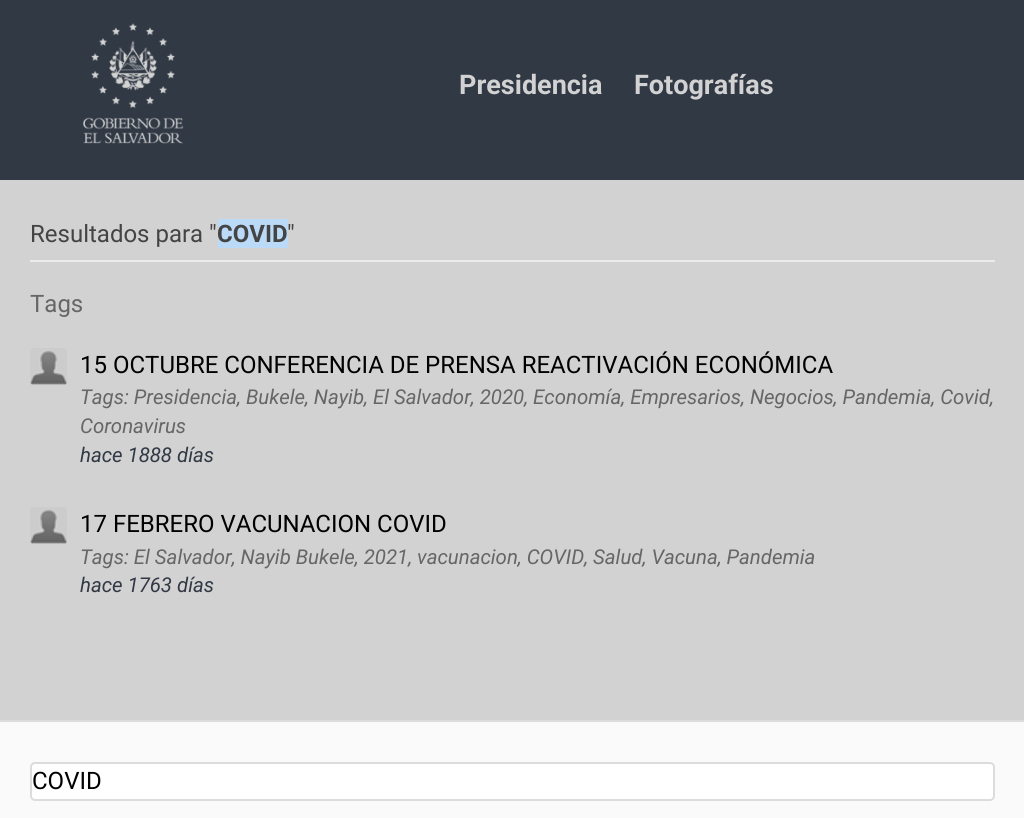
#include <cairo.h>
#include <math.h>
#include <stddef.h>


static void set_color(cairo_t *cr, unsigned color) {
    cairo_set_source_rgb(cr, (color >> 16) / 255.0, (color >> 8 & 255) / 255.0, (color & 255) / 255.0);
}

static void draw_text(cairo_t *cr, double x, double y, const char *s, const char *family, double size, int italic, int bold, unsigned color) {
    cairo_select_font_face(cr, family, italic ? CAIRO_FONT_SLANT_ITALIC : CAIRO_FONT_SLANT_NORMAL,
        bold ? CAIRO_FONT_WEIGHT_BOLD : CAIRO_FONT_WEIGHT_NORMAL);
    cairo_set_font_size(cr, size);
    set_color(cr, color);
    cairo_move_to(cr, x, y);
    cairo_show_text(cr, s);
}

static void fill_rect(cairo_t *cr, double x, double y, double w, double h, unsigned color) {
    set_color(cr, color);
    cairo_rectangle(cr, x, y, w, h);
    cairo_fill(cr);
}

static void rounded_rect(cairo_t *cr, double x, double y, double w, double h, double r) {
    cairo_new_sub_path(cr);
    cairo_arc(cr, x + w - r, y + h - r, r, 0, M_PI / 2);
    cairo_arc(cr, x + r, y + h - r, r, M_PI / 2, M_PI);
    cairo_arc(cr, x + r, y + r, r, M_PI, 1.5 * M_PI);
    cairo_arc(cr, x + w - r, y + r, r, 1.5 * M_PI, 2 * M_PI);
    cairo_close_path(cr);
}

static void draw_image(cairo_t *cr, const char *path, double x, double y, double w, double h) {
    cairo_surface_t *image = cairo_image_surface_create_from_png(path);
    cairo_save(cr);
    cairo_set_source_surface(cr, image, x, y);
    cairo_rectangle(cr, x, y, w, h);
    cairo_fill(cr);
    cairo_restore(cr);
    cairo_surface_destroy(image);
}

int main(void) {
    cairo_surface_t *surface = cairo_image_surface_create(CAIRO_FORMAT_RGB24, 1024, 818);
    cairo_t *cr = cairo_create(surface);
    cairo_font_options_t *options = cairo_font_options_create();
    cairo_font_options_set_hint_metrics(options, CAIRO_HINT_METRICS_OFF);
    cairo_font_options_set_hint_style(options, CAIRO_HINT_STYLE_NONE);
    cairo_set_font_options(cr, options);
    cairo_set_miter_limit(cr, 4);
    set_color(cr, 0xD2D2D2);
    cairo_paint(cr);
    fill_rect(cr, 0, 0, 1024, 180, 0x313945);
    draw_image(cr, "assets/img1.png", 83, 23, 101, 121);
    draw_text(cr, 459, 94, "Presidencia", "Roboto", 27, 0, 1, 0xD2D2D2);
    draw_text(cr, 634, 94, "Fotografías", "Roboto", 27, 0, 1, 0xD2D2D2);
    fill_rect(cr, 30, 260, 965, 2, 0xEBEBEB);
    draw_text(cr, 30, 242, "Resultados para \"", "Roboto", 24, 0, 0, 0x444444);
    fill_rect(cr, 218, 219, 70, 29, 0xBBDAF7);
    draw_text(cr, 217, 242, "COVID", "Roboto", 24, 0, 1, 0x444444);
    draw_text(cr, 287, 242, "\"", "Roboto", 24, 0, 0, 0x444444);
    draw_text(cr, 30, 312, "Tags", "Roboto", 24, 0, 0, 0x666666);
    draw_image(cr, "assets/img2.png", 30, 348, 37, 37);
    draw_text(cr, 80, 373, "15 OCTUBRE CONFERENCIA DE PRENSA REACTIVACIÓN ECONÓMICA", "Roboto", 24, 0, 0, 0x000000);
    draw_text(cr, 80, 404, "Tags: Presidencia, Bukele, Nayib, El Salvador, 2020, Economía, Empresarios, Negocios, Pandemia, Covid,", "Roboto", 20.4, 1, 0, 0x666666);
    draw_text(cr, 80, 433, "Coronavirus", "Roboto", 20.4, 1, 0, 0x666666);
    draw_text(cr, 80, 462, "hace 1888 días", "Roboto", 20.4, 1, 0, 0x313945);
    draw_image(cr, "assets/img3.png", 30, 507, 37, 37);
    draw_text(cr, 80, 532, "17 FEBRERO VACUNACION COVID", "Roboto", 24, 0, 0, 0x000000);
    draw_text(cr, 80, 564, "Tags: El Salvador, Nayib Bukele, 2021, vacunacion, COVID, Salud, Vacuna, Pandemia", "Roboto", 20.4, 1, 0, 0x666666);
    draw_text(cr, 80, 592, "hace 1763 días", "Roboto", 20.4, 1, 0, 0x313945);
    fill_rect(cr, 0, 722, 1024, 96, 0xFAFAFA);
    fill_rect(cr, 0, 720, 1024, 2, 0xDCDCDC);
    set_color(cr, 0xFFFFFF);
    rounded_rect(cr, 31, 763, 963, 37, 4);
    cairo_fill_preserve(cr);
    set_color(cr, 0xDCDCDC);
    cairo_stroke(cr);
    draw_text(cr, 32, 789, "COVID", "Roboto", 24, 0, 0, 0x000000);
    cairo_surface_write_to_png(surface, "output.png");
    cairo_font_options_destroy(options);
    cairo_destroy(cr);
    cairo_surface_destroy(surface);
    return 0;
}
